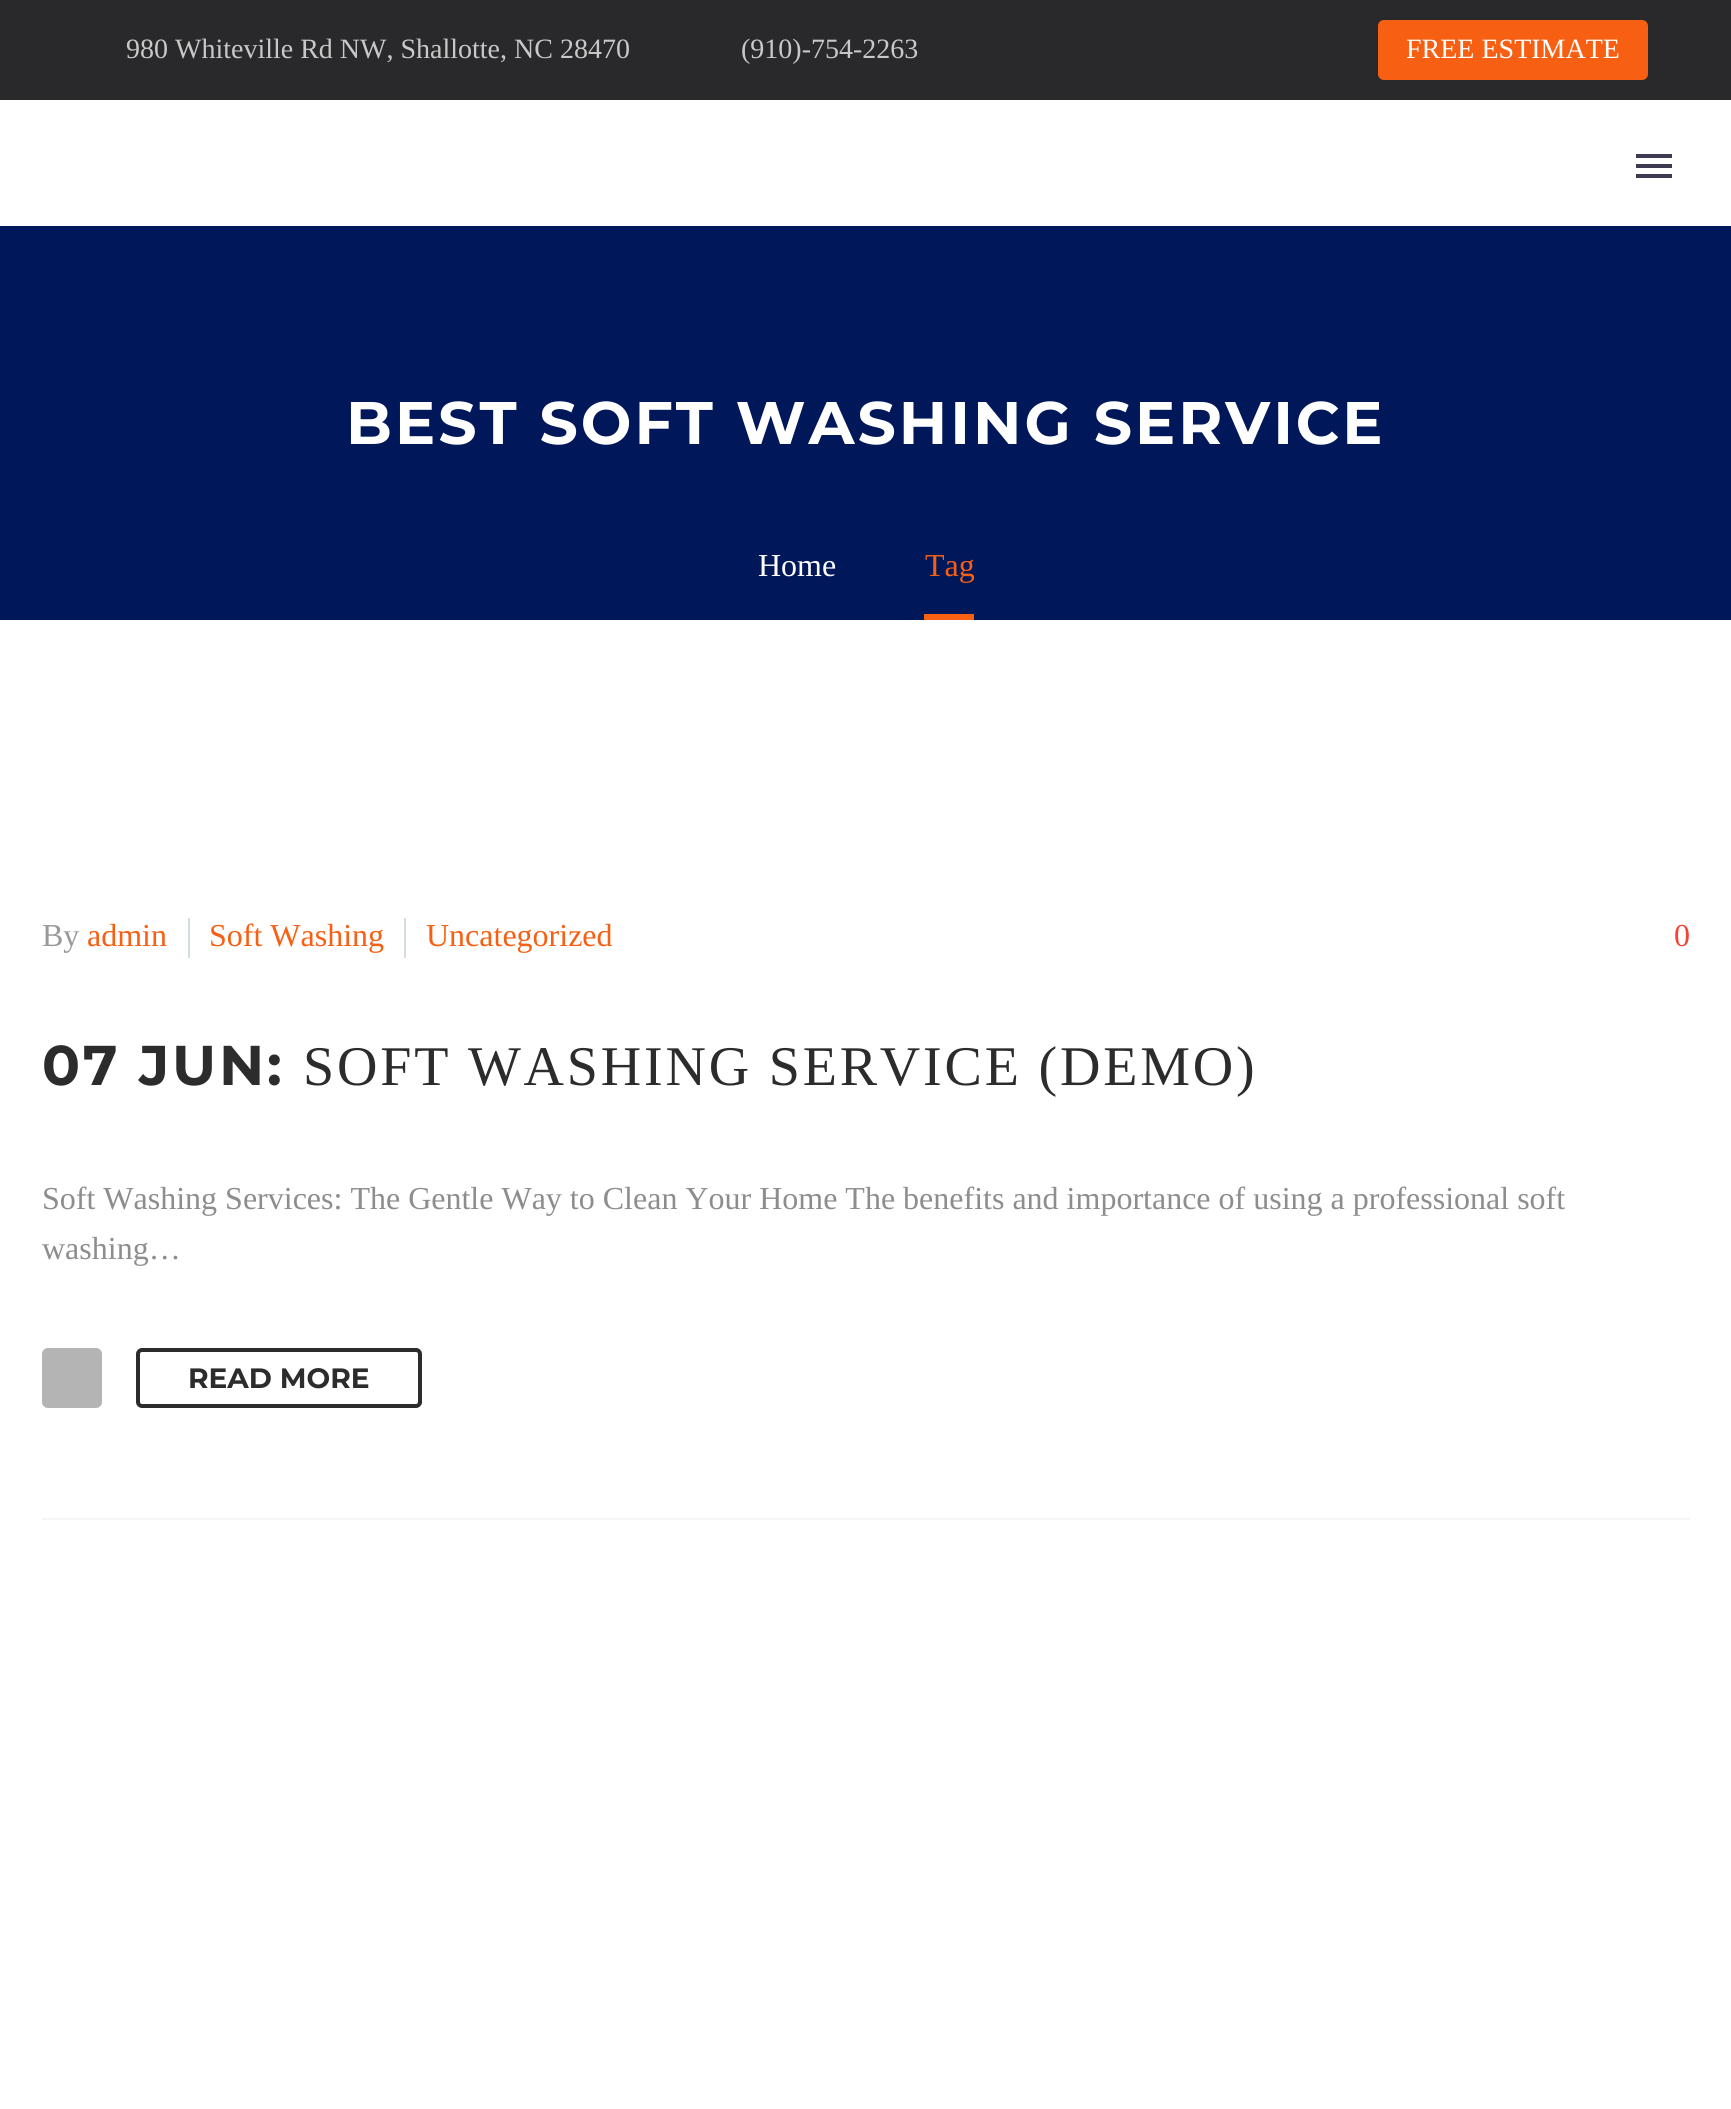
#include <cairo.h>
#include <math.h>
#include <stddef.h>


static void set_color(cairo_t *cr, unsigned color) {
    cairo_set_source_rgb(cr, (color >> 16) / 255.0, (color >> 8 & 255) / 255.0, (color & 255) / 255.0);
}

static void draw_text(cairo_t *cr, double x, double y, const char *s, const char *family, double size, int italic, int bold, unsigned color) {
    cairo_select_font_face(cr, family, italic ? CAIRO_FONT_SLANT_ITALIC : CAIRO_FONT_SLANT_NORMAL,
        bold ? CAIRO_FONT_WEIGHT_BOLD : CAIRO_FONT_WEIGHT_NORMAL);
    cairo_set_font_size(cr, size);
    set_color(cr, color);
    cairo_move_to(cr, x, y);
    cairo_show_text(cr, s);
}

static void draw_spaced(cairo_t *cr, double x, double y, const char *s, double letter, double word) {
    cairo_move_to(cr, x, y);
    while (*s) {
        char ch[5] = {0};
        int n = 0;
        do ch[n++] = *s++; while ((*s & 0xC0) == 0x80);
        cairo_show_text(cr, ch);
        cairo_rel_move_to(cr, letter + word * (*ch == ' '), 0);
    }
}

static void fill_rect(cairo_t *cr, double x, double y, double w, double h, unsigned color) {
    set_color(cr, color);
    cairo_rectangle(cr, x, y, w, h);
    cairo_fill(cr);
}

static void rounded_rect(cairo_t *cr, double x, double y, double w, double h, double r) {
    cairo_new_sub_path(cr);
    cairo_arc(cr, x + w - r, y + h - r, r, 0, M_PI / 2);
    cairo_arc(cr, x + r, y + h - r, r, M_PI / 2, M_PI);
    cairo_arc(cr, x + r, y + r, r, M_PI, 1.5 * M_PI);
    cairo_arc(cr, x + w - r, y + r, r, 1.5 * M_PI, 2 * M_PI);
    cairo_close_path(cr);
}

int main(void) {
    cairo_surface_t *surface = cairo_image_surface_create(CAIRO_FORMAT_RGB24, 1731, 2109);
    cairo_t *cr = cairo_create(surface);
    cairo_font_options_t *options = cairo_font_options_create();
    cairo_font_options_set_hint_metrics(options, CAIRO_HINT_METRICS_OFF);
    cairo_font_options_set_hint_style(options, CAIRO_HINT_STYLE_NONE);
    cairo_set_font_options(cr, options);
    cairo_set_miter_limit(cr, 4);
    set_color(cr, 0xFFFFFF);
    cairo_paint(cr);
    fill_rect(cr, 0, 0, 1731, 100, 0x29292B);
    draw_text(cr, 126, 58, "980 Whiteville Rd NW, Shallotte, NC 28470", "Liberation Serif", 28, 0, 0, 0xC8C8C8);
    draw_text(cr, 741, 58, "(910)-754-2263", "Liberation Serif", 28, 0, 0, 0xC8C8C8);
    set_color(cr, 0xF76013);
    rounded_rect(cr, 1378, 20, 270, 60, 6);
    cairo_fill(cr);
    draw_text(cr, 1406, 58, "FREE ESTIMATE", "Liberation Serif", 28, 0, 0, 0xFFFFFF);
    fill_rect(cr, 1636, 154, 36, 4, 0x3C3950);
    fill_rect(cr, 1636, 164, 36, 4, 0x3C3950);
    fill_rect(cr, 1636, 174, 36, 4, 0x3C3950);
    fill_rect(cr, 0, 226, 1731, 394, 0x001759);
    cairo_select_font_face(cr, "Montserrat", CAIRO_FONT_SLANT_NORMAL, CAIRO_FONT_WEIGHT_BOLD);
    cairo_set_font_size(cr, 60);
    set_color(cr, 0xFFFFFF);
    draw_spaced(cr, 346, 444, "BEST SOFT WASHING SERVICE", 3, 0);
    draw_text(cr, 758, 576, "Home", "Liberation Serif", 32, 0, 0, 0xFFFFFF);
    fill_rect(cr, 924, 614, 50, 6, 0xF76013);
    draw_text(cr, 925, 576, "Tag", "Liberation Serif", 32, 0, 0, 0xF76013);
    fill_rect(cr, 42, 1518, 1648, 2, 0xF5F5F5);
    draw_text(cr, 42, 946, "By", "Liberation Serif", 32, 0, 0, 0x999999);
    draw_text(cr, 87, 946, "admin", "Liberation Serif", 32, 0, 0, 0xF76013);
    fill_rect(cr, 188, 918, 2, 40, 0xD4DEE1);
    draw_text(cr, 209, 946, "Soft Washing", "Liberation Serif", 32, 0, 0, 0xF76013);
    fill_rect(cr, 404, 918, 2, 40, 0xD4DEE1);
    draw_text(cr, 426, 946, "Uncategorized", "Liberation Serif", 32, 0, 0, 0xF76013);
    draw_text(cr, 1674, 946, "0", "Liberation Serif", 32, 0, 0, 0xF44336);
    cairo_select_font_face(cr, "Montserrat", CAIRO_FONT_SLANT_NORMAL, CAIRO_FONT_WEIGHT_BOLD);
    cairo_set_font_size(cr, 56);
    set_color(cr, 0x2C2C2C);
    draw_spaced(cr, 42, 1085, "07 JUN:", 2.8, 0);
    cairo_select_font_face(cr, "Liberation Serif", CAIRO_FONT_SLANT_NORMAL, CAIRO_FONT_WEIGHT_NORMAL);
    draw_spaced(cr, 303, 1085, "SOFT WASHING SERVICE (DEMO)", 2.8, 0);
    draw_text(cr, 42, 1209, "Soft Washing Services: The Gentle Way to Clean Your Home The benefits and importance of using a professional soft", "Liberation Serif", 32, 0, 0, 0x8D8D8D);
    draw_text(cr, 42, 1259, "washing…", "Liberation Serif", 32, 0, 0, 0x8D8D8D);
    set_color(cr, 0xB4B4B4);
    rounded_rect(cr, 42, 1348, 60, 60, 6);
    cairo_fill(cr);
    rounded_rect(cr, 138, 1350, 282, 56, 4);
    set_color(cr, 0x2C2C2C);
    cairo_set_line_width(cr, 4);
    cairo_stroke(cr);
    draw_text(cr, 188, 1388, "READ MORE", "Montserrat", 28, 0, 1, 0x2C2C2C);
    cairo_surface_write_to_png(surface, "output.png");
    cairo_font_options_destroy(options);
    cairo_destroy(cr);
    cairo_surface_destroy(surface);
    return 0;
}
